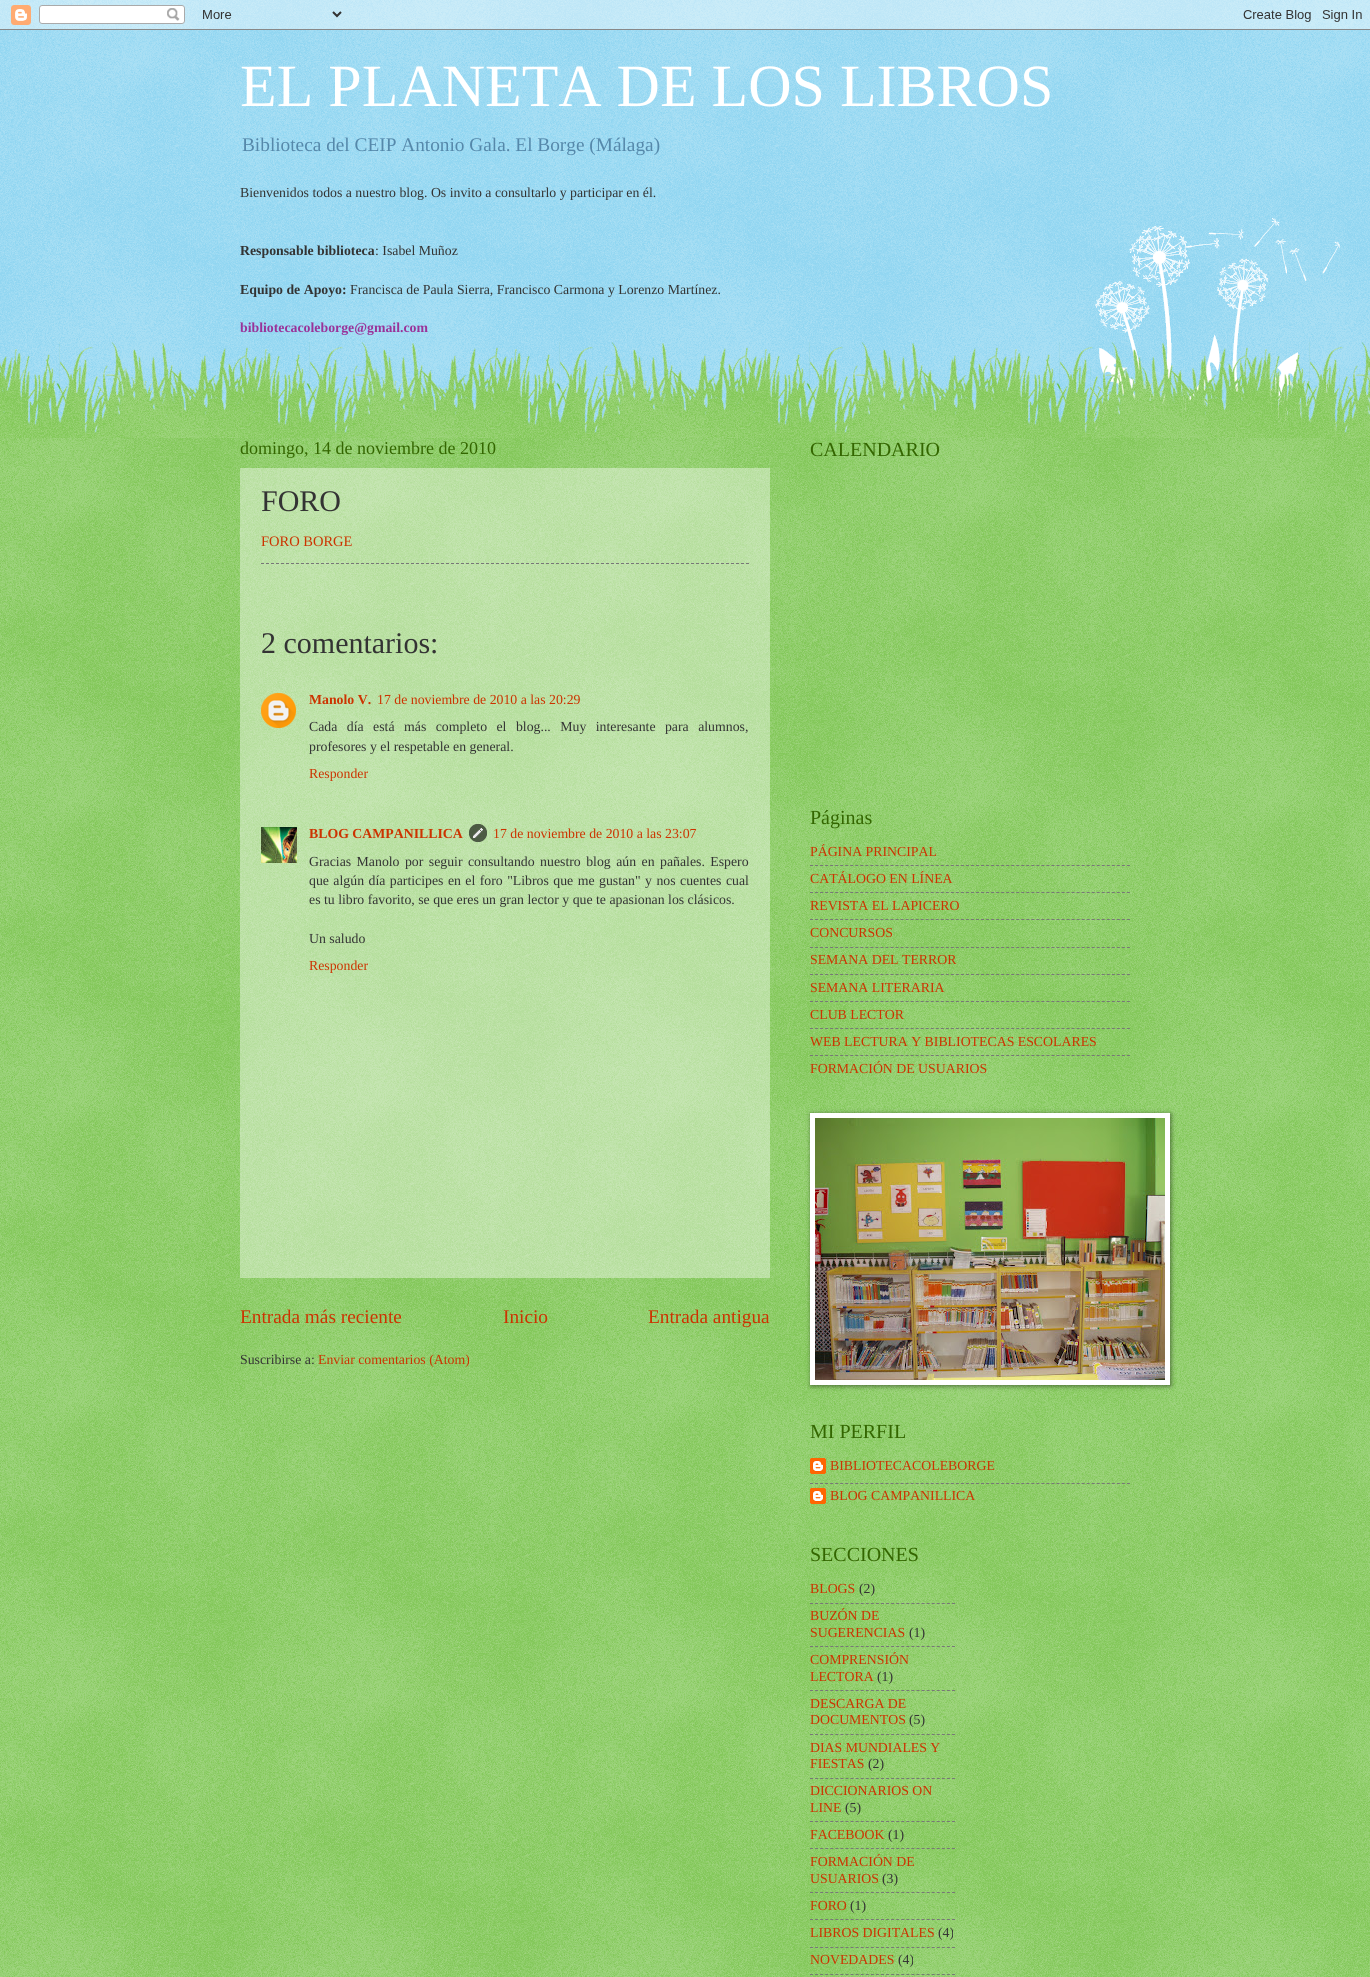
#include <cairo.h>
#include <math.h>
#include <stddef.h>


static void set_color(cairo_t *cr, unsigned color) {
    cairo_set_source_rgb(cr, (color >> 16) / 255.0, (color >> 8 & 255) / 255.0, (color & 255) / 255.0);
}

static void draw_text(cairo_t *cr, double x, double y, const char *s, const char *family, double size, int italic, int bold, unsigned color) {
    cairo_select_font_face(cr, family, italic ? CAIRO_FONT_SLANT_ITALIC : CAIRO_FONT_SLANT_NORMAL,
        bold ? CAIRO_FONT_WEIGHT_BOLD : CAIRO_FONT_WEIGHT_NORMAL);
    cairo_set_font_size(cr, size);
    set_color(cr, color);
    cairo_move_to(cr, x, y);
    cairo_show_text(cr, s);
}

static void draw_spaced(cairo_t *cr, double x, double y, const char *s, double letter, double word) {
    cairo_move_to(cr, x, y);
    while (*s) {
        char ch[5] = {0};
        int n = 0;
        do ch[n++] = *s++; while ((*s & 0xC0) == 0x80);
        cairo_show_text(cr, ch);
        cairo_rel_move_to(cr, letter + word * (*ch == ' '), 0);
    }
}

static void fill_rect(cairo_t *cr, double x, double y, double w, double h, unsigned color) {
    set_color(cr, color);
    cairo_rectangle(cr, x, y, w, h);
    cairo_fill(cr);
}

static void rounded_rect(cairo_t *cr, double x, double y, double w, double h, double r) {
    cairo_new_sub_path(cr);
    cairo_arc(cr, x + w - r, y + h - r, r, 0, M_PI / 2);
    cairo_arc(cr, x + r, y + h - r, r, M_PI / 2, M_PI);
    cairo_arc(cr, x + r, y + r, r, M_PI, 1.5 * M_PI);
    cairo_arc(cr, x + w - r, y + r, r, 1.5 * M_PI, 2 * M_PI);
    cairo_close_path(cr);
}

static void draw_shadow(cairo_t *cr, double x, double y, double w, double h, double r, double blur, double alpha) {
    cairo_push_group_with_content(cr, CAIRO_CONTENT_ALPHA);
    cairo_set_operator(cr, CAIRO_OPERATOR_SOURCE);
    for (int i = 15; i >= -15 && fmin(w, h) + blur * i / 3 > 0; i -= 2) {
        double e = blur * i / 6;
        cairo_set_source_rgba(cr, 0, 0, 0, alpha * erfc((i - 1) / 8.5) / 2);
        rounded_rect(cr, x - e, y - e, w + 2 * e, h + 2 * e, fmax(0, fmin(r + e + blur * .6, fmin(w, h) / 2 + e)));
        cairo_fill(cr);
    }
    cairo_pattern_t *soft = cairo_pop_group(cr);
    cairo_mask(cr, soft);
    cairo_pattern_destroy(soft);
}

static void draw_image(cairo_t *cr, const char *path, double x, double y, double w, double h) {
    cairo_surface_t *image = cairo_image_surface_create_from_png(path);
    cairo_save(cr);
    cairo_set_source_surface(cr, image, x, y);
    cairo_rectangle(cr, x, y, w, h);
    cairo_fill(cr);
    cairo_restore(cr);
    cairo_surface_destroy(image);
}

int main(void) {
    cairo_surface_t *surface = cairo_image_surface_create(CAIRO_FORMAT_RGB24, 1370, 1977);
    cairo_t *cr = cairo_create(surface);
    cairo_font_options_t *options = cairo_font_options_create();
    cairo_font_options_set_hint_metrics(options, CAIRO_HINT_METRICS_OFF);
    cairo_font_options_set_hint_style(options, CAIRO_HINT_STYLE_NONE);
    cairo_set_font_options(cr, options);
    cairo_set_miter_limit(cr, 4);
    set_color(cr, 0x77CCEE);
    cairo_paint(cr);
    draw_image(cr, "assets/img1.png", 0, 0, 1370, 433);
    draw_image(cr, "assets/img2.png", 0, 0, 1370, 30);
    draw_text(cr, 240, 106, "EL PLANETA DE LOS LIBROS", "Liberation Serif", 60, 0, 0, 0xFFFFFF);
    draw_text(cr, 242, 151, "Biblioteca del CEIP Antonio Gala. El Borge (Málaga)", "Liberation Serif", 19.3, 0, 0, 0x5588AA);
    draw_text(cr, 240, 197, "Bienvenidos todos a nuestro blog. Os invito a consultarlo y participar en él.", "Liberation Serif", 13.8, 0, 0, 0x333333);
    draw_text(cr, 240, 255, "Responsable biblioteca", "Liberation Serif", 13.8, 0, 1, 0x333333);
    draw_text(cr, 375, 255, ": Isabel Muñoz", "Liberation Serif", 13.8, 0, 0, 0x333333);
    draw_text(cr, 240, 294, "Equipo de Apoyo:", "Liberation Serif", 13.8, 0, 1, 0x333333);
    draw_text(cr, 350, 294, "Francisca de Paula Sierra, Francisco Carmona y Lorenzo Martínez.", "Liberation Serif", 13.8, 0, 0, 0x333333);
    draw_text(cr, 240, 332, "bibliotecacoleborge@gmail.com", "Liberation Serif", 13.8, 0, 1, 0x993399);
    fill_rect(cr, 0, 438, 1370, 1539, 0x66BB33);
    draw_image(cr, "assets/img3.png", 0, 438, 1370, 1539);
    draw_image(cr, "assets/img4.png", 1090, 218, 250, 215);
    draw_image(cr, "assets/img5.png", 0, 342, 1370, 96);
    draw_text(cr, 240, 454, "domingo, 14 de noviembre de 2010", "Liberation Serif", 18, 0, 0, 0x336600);
    cairo_set_source_rgba(cr, 1, 1, 1, 0.4);
    cairo_rectangle(cr, 240, 468, 530, 810);
    cairo_fill(cr);
    draw_text(cr, 261, 511, "FORO", "Liberation Serif", 30, 0, 0, 0x333333);
    draw_text(cr, 261, 546, "FORO BORGE", "Liberation Serif", 14.5, 0, 0, 0xCC3300);
    cairo_new_path(cr);
    cairo_move_to(cr, 261, 563.5);
    cairo_line_to(cr, 749, 563.5);
    set_color(cr, 0x777777);
    cairo_set_line_width(cr, 1);
    cairo_set_dash(cr, (double[]){3, 2}, 2, 0);
    cairo_stroke(cr);
    draw_text(cr, 261, 653, "2 comentarios:", "Liberation Serif", 30, 0, 0, 0x333333);
    draw_image(cr, "assets/img6.png", 261, 693, 35, 35);
    draw_text(cr, 309, 704, "Manolo V.", "Liberation Serif", 13.8, 0, 1, 0xCC3300);
    draw_text(cr, 377, 704, "17 de noviembre de 2010 a las 20:29", "Liberation Serif", 13.8, 0, 0, 0xCC3300);
    set_color(cr, 0x333333);
    draw_spaced(cr, 309, 731, "Cada día está más completo el blog... Muy interesante para alumnos,", 0, 6);
    draw_text(cr, 309, 751, "profesores y el respetable en general.", "Liberation Serif", 13.8, 0, 0, 0x333333);
    draw_text(cr, 309, 778, "Responder", "Liberation Serif", 13.8, 0, 0, 0xCC3300);
    draw_image(cr, "assets/img7.png", 261, 827, 36, 36);
    draw_text(cr, 309, 838, "BLOG CAMPANILLICA", "Liberation Serif", 13.8, 0, 1, 0xCC3300);
    draw_image(cr, "assets/img8.png", 469, 824, 18, 18);
    draw_text(cr, 493, 838, "17 de noviembre de 2010 a las 23:07", "Liberation Serif", 13.8, 0, 0, 0xCC3300);
    set_color(cr, 0x333333);
    draw_spaced(cr, 309, 866, "Gracias Manolo por seguir consultando nuestro blog aún en pañales. Espero", 0, 2);
    draw_spaced(cr, 309, 885, "que algún día participes en el foro \"Libros que me gustan\" y nos cuentes cual", 0, 1);
    draw_text(cr, 309, 904, "es tu libro favorito, se que eres un gran lector y que te apasionan los clásicos.", "Liberation Serif", 13.8, 0, 0, 0x333333);
    draw_text(cr, 309, 943, "Un saludo", "Liberation Serif", 13.8, 0, 0, 0x333333);
    draw_text(cr, 309, 970, "Responder", "Liberation Serif", 13.8, 0, 0, 0xCC3300);
    draw_text(cr, 240, 1323, "Entrada más reciente", "Liberation Serif", 19.3, 0, 0, 0xCC3300);
    draw_text(cr, 503, 1323, "Inicio", "Liberation Serif", 19.3, 0, 0, 0xCC3300);
    draw_text(cr, 648, 1323, "Entrada antigua", "Liberation Serif", 19.3, 0, 0, 0xCC3300);
    draw_text(cr, 240, 1364, "Suscribirse a:", "Liberation Serif", 13.8, 0, 0, 0x333333);
    draw_text(cr, 318, 1364, "Enviar comentarios (Atom)", "Liberation Serif", 13.8, 0, 0, 0xCC3300);
    draw_text(cr, 810, 456, "CALENDARIO", "Liberation Serif", 20, 0, 0, 0x336600);
    draw_text(cr, 810, 824, "Páginas", "Liberation Serif", 20, 0, 0, 0x336600);
    draw_text(cr, 810, 856, "PÁGINA PRINCIPAL", "Liberation Serif", 13.8, 0, 0, 0xCC3300);
    cairo_new_path(cr);
    cairo_move_to(cr, 810, 865.5);
    cairo_line_to(cr, 1130, 865.5);
    set_color(cr, 0x777777);
    cairo_set_dash(cr, (double[]){3, 2.03}, 2, 0);
    cairo_stroke(cr);
    draw_text(cr, 810, 883, "CATÁLOGO EN LÍNEA", "Liberation Serif", 13.8, 0, 0, 0xCC3300);
    cairo_new_path(cr);
    cairo_move_to(cr, 810, 892.5);
    cairo_line_to(cr, 1130, 892.5);
    set_color(cr, 0x777777);
    cairo_stroke(cr);
    draw_text(cr, 810, 910, "REVISTA EL LAPICERO", "Liberation Serif", 13.8, 0, 0, 0xCC3300);
    cairo_new_path(cr);
    cairo_move_to(cr, 810, 919.5);
    cairo_line_to(cr, 1130, 919.5);
    set_color(cr, 0x777777);
    cairo_stroke(cr);
    draw_text(cr, 810, 937, "CONCURSOS", "Liberation Serif", 13.8, 0, 0, 0xCC3300);
    cairo_new_path(cr);
    cairo_move_to(cr, 810, 947.5);
    cairo_line_to(cr, 1130, 947.5);
    set_color(cr, 0x777777);
    cairo_stroke(cr);
    draw_text(cr, 810, 964, "SEMANA DEL TERROR", "Liberation Serif", 13.8, 0, 0, 0xCC3300);
    cairo_new_path(cr);
    cairo_move_to(cr, 810, 974.5);
    cairo_line_to(cr, 1130, 974.5);
    set_color(cr, 0x777777);
    cairo_stroke(cr);
    draw_text(cr, 810, 992, "SEMANA LITERARIA", "Liberation Serif", 13.8, 0, 0, 0xCC3300);
    cairo_new_path(cr);
    cairo_move_to(cr, 810, 1001.5);
    cairo_line_to(cr, 1130, 1001.5);
    set_color(cr, 0x777777);
    cairo_stroke(cr);
    draw_text(cr, 810, 1019, "CLUB LECTOR", "Liberation Serif", 13.8, 0, 0, 0xCC3300);
    cairo_new_path(cr);
    cairo_move_to(cr, 810, 1028.5);
    cairo_line_to(cr, 1130, 1028.5);
    set_color(cr, 0x777777);
    cairo_stroke(cr);
    draw_text(cr, 810, 1046, "WEB LECTURA Y BIBLIOTECAS ESCOLARES", "Liberation Serif", 13.8, 0, 0, 0xCC3300);
    cairo_new_path(cr);
    cairo_move_to(cr, 810, 1055.5);
    cairo_line_to(cr, 1130, 1055.5);
    set_color(cr, 0x777777);
    cairo_stroke(cr);
    draw_text(cr, 810, 1073, "FORMACIÓN DE USUARIOS", "Liberation Serif", 13.8, 0, 0, 0xCC3300);
    set_color(cr, 0x000000);
    draw_shadow(cr, 811, 1114, 360, 272, 0, 2.5, 0.5);
    fill_rect(cr, 810, 1113, 360, 272, 0xFFFFFF);
    draw_image(cr, "assets/img9.png", 815, 1118, 350, 262);
    draw_text(cr, 810, 1438, "MI PERFIL", "Liberation Serif", 20, 0, 0, 0x336600);
    draw_image(cr, "assets/img10.png", 810, 1458, 16, 16);
    draw_text(cr, 830, 1470, "BIBLIOTECACOLEBORGE", "Liberation Serif", 13.8, 0, 0, 0xCC3300);
    cairo_new_path(cr);
    cairo_move_to(cr, 810, 1483.5);
    cairo_line_to(cr, 1130, 1483.5);
    set_color(cr, 0x777777);
    cairo_stroke(cr);
    draw_image(cr, "assets/img11.png", 810, 1488, 16, 16);
    draw_text(cr, 830, 1500, "BLOG CAMPANILLICA", "Liberation Serif", 13.8, 0, 0, 0xCC3300);
    draw_text(cr, 810, 1561, "SECCIONES", "Liberation Serif", 20, 0, 0, 0x336600);
    draw_text(cr, 810, 1593, "BLOGS", "Liberation Serif", 13.8, 0, 0, 0xCC3300);
    draw_text(cr, 859, 1593, "(2)", "Liberation Serif", 13.8, 0, 0, 0x333333);
    cairo_new_path(cr);
    cairo_move_to(cr, 810, 1603.5);
    cairo_line_to(cr, 955, 1603.5);
    set_color(cr, 0x777777);
    cairo_set_dash(cr, (double[]){3, 2.07}, 2, 0);
    cairo_stroke(cr);
    draw_text(cr, 810, 1620, "BUZÓN DE", "Liberation Serif", 13.8, 0, 0, 0xCC3300);
    draw_text(cr, 810, 1637, "SUGERENCIAS", "Liberation Serif", 13.8, 0, 0, 0xCC3300);
    draw_text(cr, 909, 1637, "(1)", "Liberation Serif", 13.8, 0, 0, 0x333333);
    cairo_new_path(cr);
    cairo_move_to(cr, 810, 1646.5);
    cairo_line_to(cr, 955, 1646.5);
    set_color(cr, 0x777777);
    cairo_stroke(cr);
    draw_text(cr, 810, 1664, "COMPRENSIÓN", "Liberation Serif", 13.8, 0, 0, 0xCC3300);
    draw_text(cr, 810, 1681, "LECTORA", "Liberation Serif", 13.8, 0, 0, 0xCC3300);
    draw_text(cr, 877, 1681, "(1)", "Liberation Serif", 13.8, 0, 0, 0x333333);
    cairo_new_path(cr);
    cairo_move_to(cr, 810, 1690.5);
    cairo_line_to(cr, 955, 1690.5);
    set_color(cr, 0x777777);
    cairo_stroke(cr);
    draw_text(cr, 810, 1708, "DESCARGA DE", "Liberation Serif", 13.8, 0, 0, 0xCC3300);
    draw_text(cr, 810, 1724, "DOCUMENTOS", "Liberation Serif", 13.8, 0, 0, 0xCC3300);
    draw_text(cr, 909, 1724, "(5)", "Liberation Serif", 13.8, 0, 0, 0x333333);
    cairo_new_path(cr);
    cairo_move_to(cr, 810, 1734.5);
    cairo_line_to(cr, 955, 1734.5);
    set_color(cr, 0x777777);
    cairo_stroke(cr);
    draw_text(cr, 810, 1752, "DIAS MUNDIALES Y", "Liberation Serif", 13.8, 0, 0, 0xCC3300);
    draw_text(cr, 810, 1768, "FIESTAS", "Liberation Serif", 13.8, 0, 0, 0xCC3300);
    draw_text(cr, 868, 1768, "(2)", "Liberation Serif", 13.8, 0, 0, 0x333333);
    cairo_new_path(cr);
    cairo_move_to(cr, 810, 1778.5);
    cairo_line_to(cr, 955, 1778.5);
    set_color(cr, 0x777777);
    cairo_stroke(cr);
    draw_text(cr, 810, 1795, "DICCIONARIOS ON", "Liberation Serif", 13.8, 0, 0, 0xCC3300);
    draw_text(cr, 810, 1812, "LINE", "Liberation Serif", 13.8, 0, 0, 0xCC3300);
    draw_text(cr, 845, 1812, "(5)", "Liberation Serif", 13.8, 0, 0, 0x333333);
    cairo_new_path(cr);
    cairo_move_to(cr, 810, 1821.5);
    cairo_line_to(cr, 955, 1821.5);
    set_color(cr, 0x777777);
    cairo_stroke(cr);
    draw_text(cr, 810, 1839, "FACEBOOK", "Liberation Serif", 13.8, 0, 0, 0xCC3300);
    draw_text(cr, 888, 1839, "(1)", "Liberation Serif", 13.8, 0, 0, 0x333333);
    cairo_new_path(cr);
    cairo_move_to(cr, 810, 1848.5);
    cairo_line_to(cr, 955, 1848.5);
    set_color(cr, 0x777777);
    cairo_stroke(cr);
    draw_text(cr, 810, 1866, "FORMACIÓN DE", "Liberation Serif", 13.8, 0, 0, 0xCC3300);
    draw_text(cr, 810, 1883, "USUARIOS", "Liberation Serif", 13.8, 0, 0, 0xCC3300);
    draw_text(cr, 882, 1883, "(3)", "Liberation Serif", 13.8, 0, 0, 0x333333);
    cairo_new_path(cr);
    cairo_move_to(cr, 810, 1892.5);
    cairo_line_to(cr, 955, 1892.5);
    set_color(cr, 0x777777);
    cairo_stroke(cr);
    draw_text(cr, 810, 1910, "FORO", "Liberation Serif", 13.8, 0, 0, 0xCC3300);
    draw_text(cr, 850, 1910, "(1)", "Liberation Serif", 13.8, 0, 0, 0x333333);
    cairo_new_path(cr);
    cairo_move_to(cr, 810, 1919.5);
    cairo_line_to(cr, 955, 1919.5);
    set_color(cr, 0x777777);
    cairo_stroke(cr);
    draw_text(cr, 810, 1937, "LIBROS DIGITALES", "Liberation Serif", 13.8, 0, 0, 0xCC3300);
    draw_text(cr, 938, 1937, "(4)", "Liberation Serif", 13.8, 0, 0, 0x333333);
    cairo_new_path(cr);
    cairo_move_to(cr, 810, 1947.5);
    cairo_line_to(cr, 955, 1947.5);
    set_color(cr, 0x777777);
    cairo_stroke(cr);
    draw_text(cr, 810, 1964, "NOVEDADES", "Liberation Serif", 13.8, 0, 0, 0xCC3300);
    draw_text(cr, 898, 1964, "(4)", "Liberation Serif", 13.8, 0, 0, 0x333333);
    cairo_new_path(cr);
    cairo_move_to(cr, 810, 1974.5);
    cairo_line_to(cr, 955, 1974.5);
    set_color(cr, 0x777777);
    cairo_stroke(cr);
    cairo_surface_write_to_png(surface, "output.png");
    cairo_font_options_destroy(options);
    cairo_destroy(cr);
    cairo_surface_destroy(surface);
    return 0;
}
